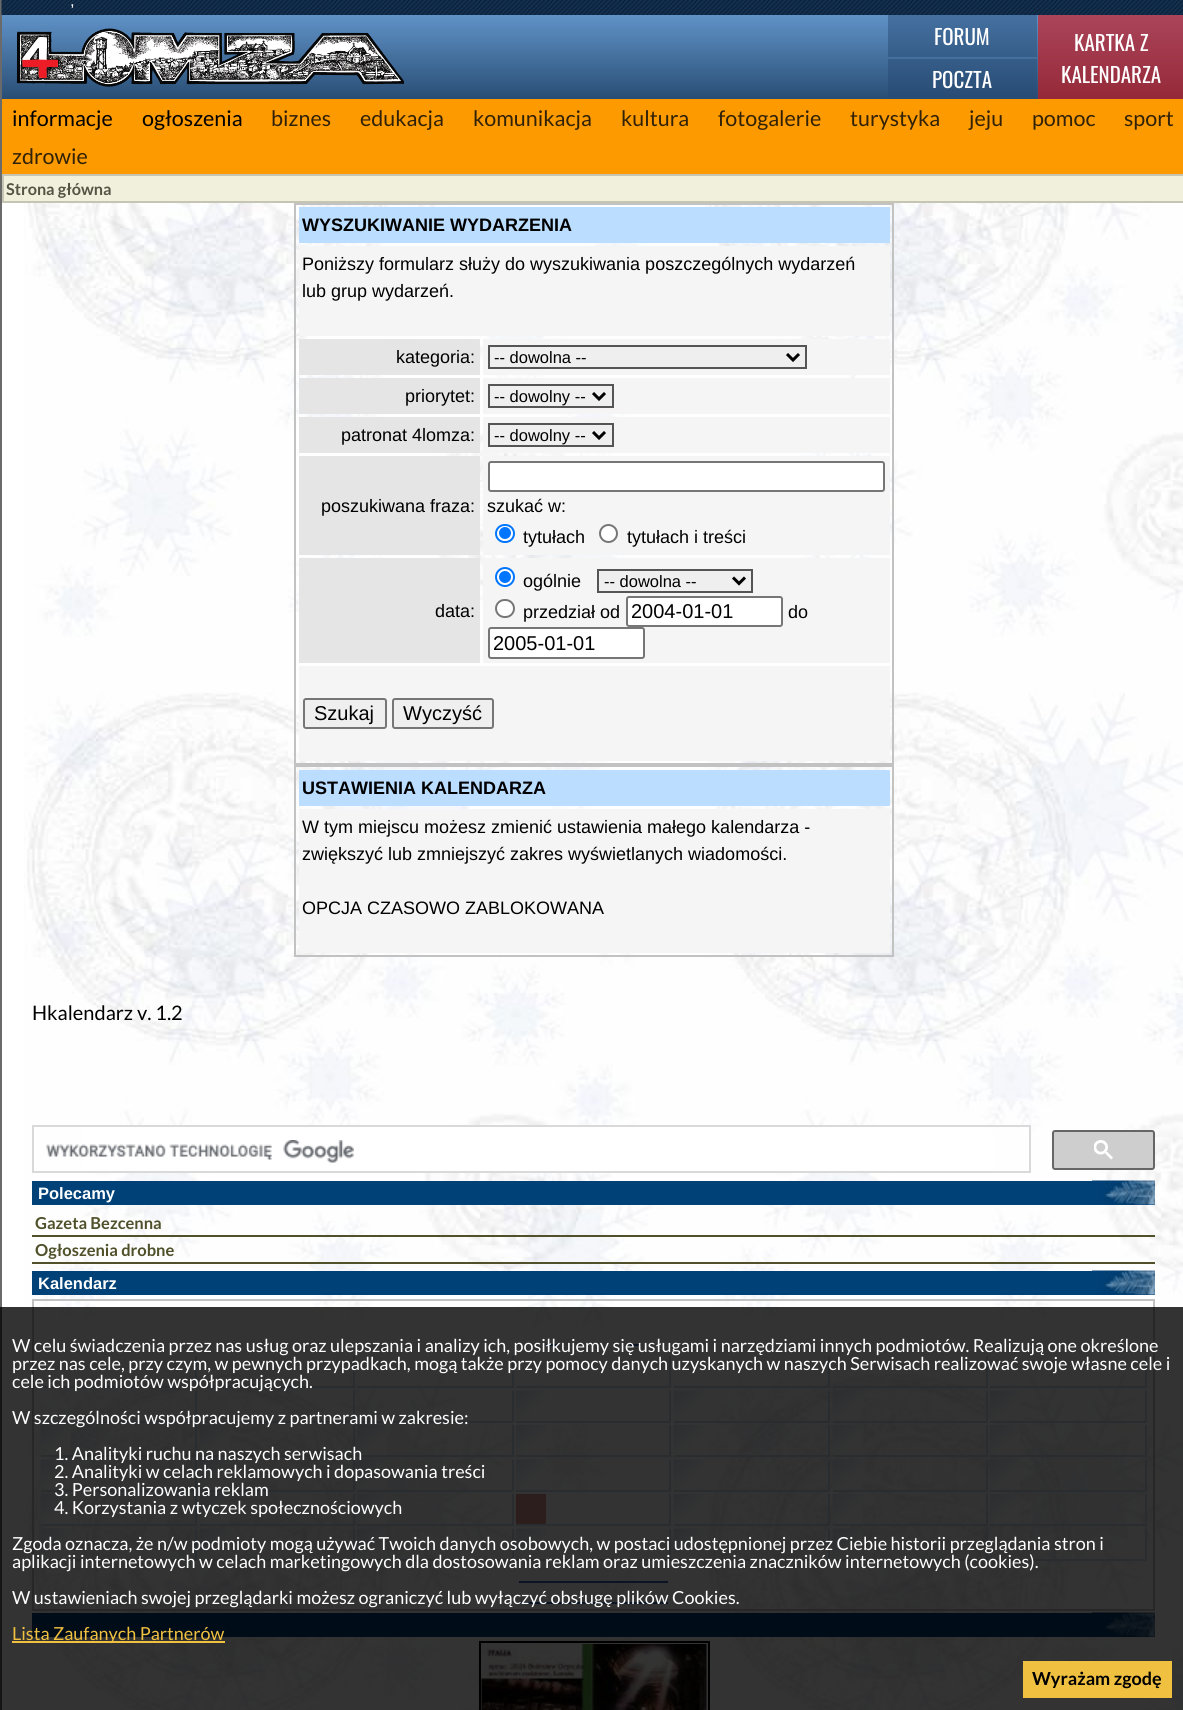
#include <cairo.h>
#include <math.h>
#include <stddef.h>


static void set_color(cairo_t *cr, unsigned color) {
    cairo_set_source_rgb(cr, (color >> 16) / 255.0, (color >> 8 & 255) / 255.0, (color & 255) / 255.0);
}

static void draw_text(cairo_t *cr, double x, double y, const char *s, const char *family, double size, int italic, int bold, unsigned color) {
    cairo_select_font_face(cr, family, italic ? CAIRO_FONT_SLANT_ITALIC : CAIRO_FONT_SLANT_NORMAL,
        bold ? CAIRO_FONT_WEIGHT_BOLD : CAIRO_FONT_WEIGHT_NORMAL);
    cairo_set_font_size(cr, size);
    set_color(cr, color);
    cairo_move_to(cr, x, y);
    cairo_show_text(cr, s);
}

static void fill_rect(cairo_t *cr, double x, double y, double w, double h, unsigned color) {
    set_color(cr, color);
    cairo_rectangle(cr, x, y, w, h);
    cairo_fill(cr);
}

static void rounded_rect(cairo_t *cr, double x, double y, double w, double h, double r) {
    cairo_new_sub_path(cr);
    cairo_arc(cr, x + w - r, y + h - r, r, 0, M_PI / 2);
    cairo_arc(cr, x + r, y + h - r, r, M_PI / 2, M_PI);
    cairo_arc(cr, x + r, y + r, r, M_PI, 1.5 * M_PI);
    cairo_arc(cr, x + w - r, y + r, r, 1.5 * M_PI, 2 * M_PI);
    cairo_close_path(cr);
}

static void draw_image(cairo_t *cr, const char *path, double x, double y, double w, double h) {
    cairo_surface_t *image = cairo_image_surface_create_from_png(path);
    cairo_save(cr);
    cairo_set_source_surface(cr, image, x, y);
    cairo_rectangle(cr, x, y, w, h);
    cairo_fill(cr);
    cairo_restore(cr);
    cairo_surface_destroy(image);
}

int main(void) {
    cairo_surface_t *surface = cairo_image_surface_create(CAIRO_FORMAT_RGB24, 1183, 1710);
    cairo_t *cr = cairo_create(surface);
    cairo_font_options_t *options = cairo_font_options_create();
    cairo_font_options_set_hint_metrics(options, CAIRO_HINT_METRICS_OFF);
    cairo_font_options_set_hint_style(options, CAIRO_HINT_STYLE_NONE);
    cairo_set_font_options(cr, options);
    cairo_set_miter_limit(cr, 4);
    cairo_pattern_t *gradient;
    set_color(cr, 0xFFFFFF);
    cairo_paint(cr);
    draw_image(cr, "assets/img1.png", 24, 203, 1159, 1507);
    fill_rect(cr, 0, 0, 2, 1710, 0x6A6A6A);
    draw_image(cr, "assets/img2.png", 1, 0, 1182, 15);
    draw_text(cr, 70, 6, ",", "Liberation Sans", 16.5, 0, 0, 0xFFFFFF);
    gradient = cairo_pattern_create_linear(593, 15, 593, 99);
    cairo_pattern_add_color_stop_rgba(gradient, 0, 0.376, 0.573, 0.78, 1);
    cairo_pattern_add_color_stop_rgba(gradient, 1, 0.161, 0.306, 0.459, 1);
    cairo_set_source(cr, gradient);
    cairo_pattern_destroy(gradient);
    cairo_rectangle(cr, 2, 15, 1181, 84);
    cairo_fill(cr);
    draw_image(cr, "assets/img3.png", 16, 28, 388, 59);
    cairo_set_source_rgba(cr, 0.145, 0.282, 0.443, 0.46);
    cairo_rectangle(cr, 888, 15, 149, 42);
    cairo_fill(cr);
    draw_text(cr, 934, 45, "FORUM", "Oswald", 21, 0, 0, 0xFFFFFF);
    cairo_set_source_rgba(cr, 0.875, 0.063, 0.063, 0.59);
    cairo_rectangle(cr, 1038, 15, 145, 84);
    cairo_fill(cr);
    draw_text(cr, 1074, 51, "KARTKA Z", "Oswald", 21, 0, 0, 0xFFFFFF);
    draw_text(cr, 1061, 83, "KALENDARZA", "Oswald", 21, 0, 0, 0xFFFFFF);
    cairo_set_source_rgba(cr, 0.145, 0.282, 0.443, 0.46);
    cairo_rectangle(cr, 888, 59, 149, 40);
    cairo_fill(cr);
    draw_text(cr, 932, 88, "POCZTA", "Oswald", 21, 0, 0, 0xFFFFFF);
    fill_rect(cr, 2, 99, 1181, 75, 0xFC9A00);
    draw_text(cr, 12, 126, "informacje", "Lato", 21.5, 0, 0, 0x000000);
    draw_text(cr, 142, 126, "ogłoszenia", "Lato", 21.5, 0, 0, 0x000000);
    draw_text(cr, 271, 126, "biznes", "Lato", 21.5, 0, 0, 0x312107);
    draw_text(cr, 360, 126, "edukacja", "Lato", 21.5, 0, 0, 0x312107);
    draw_text(cr, 473, 126, "komunikacja", "Lato", 21.5, 0, 0, 0x312107);
    draw_text(cr, 621, 126, "kultura", "Lato", 21.5, 0, 0, 0x312107);
    draw_text(cr, 718, 126, "fotogalerie", "Lato", 21.5, 0, 0, 0x312107);
    draw_text(cr, 850, 126, "turystyka", "Lato", 21.5, 0, 0, 0x312107);
    draw_text(cr, 969, 126, "jeju", "Lato", 21.5, 0, 0, 0x312107);
    draw_text(cr, 1032, 126, "pomoc", "Lato", 21.5, 0, 0, 0x312107);
    draw_text(cr, 1124, 126, "sport", "Lato", 21.5, 0, 0, 0x312107);
    draw_text(cr, 12, 164, "zdrowie", "Lato", 21.5, 0, 0, 0x312107);
    set_color(cr, 0xF1F0DC);
    cairo_rectangle(cr, 3, 175, 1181, 27);
    cairo_fill_preserve(cr);
    set_color(cr, 0xC6C5B4);
    cairo_stroke(cr);
    draw_text(cr, 6, 195, "Strona główna", "Lato", 16.25, 0, 1, 0x555444);
    cairo_rectangle(cr, 295, 204, 598, 560);
    set_color(cr, 0xC2C2C2);
    cairo_stroke(cr);
    fill_rect(cr, 299, 207, 591, 36, 0xBBDDFF);
    draw_text(cr, 302, 231, "WYSZUKIWANIE WYDARZENIA", "Liberation Sans", 18, 0, 1, 0x000000);
    fill_rect(cr, 299, 246, 591, 90, 0xF5F5F5);
    draw_text(cr, 302, 270, "Poniższy formularz służy do wyszukiwania poszczególnych wydarzeń", "Liberation Sans", 18, 0, 0, 0x000000);
    draw_text(cr, 302, 297, "lub grup wydarzeń.", "Liberation Sans", 18, 0, 0, 0x000000);
    fill_rect(cr, 299, 339, 181, 36, 0xE5E5E5);
    draw_text(cr, 396, 363, "kategoria:", "Liberation Sans", 18, 0, 0, 0x000000);
    fill_rect(cr, 483, 339, 407, 36, 0xF5F5F5);
    set_color(cr, 0xEFEFEF);
    cairo_rectangle(cr, 489, 346, 317, 22);
    cairo_fill_preserve(cr);
    set_color(cr, 0x555555);
    cairo_stroke(cr);
    cairo_new_path(cr);
    cairo_move_to(cr, 787, 354);
    cairo_line_to(cr, 793, 360);
    cairo_line_to(cr, 799, 354);
    set_color(cr, 0x000000);
    cairo_set_line_width(cr, 3);
    cairo_stroke(cr);
    draw_text(cr, 494, 363, "-- dowolna --", "Liberation Sans", 16.5, 0, 0, 0x000000);
    fill_rect(cr, 299, 378, 181, 36, 0xE5E5E5);
    draw_text(cr, 405, 402, "priorytet:", "Liberation Sans", 18, 0, 0, 0x000000);
    fill_rect(cr, 483, 378, 407, 36, 0xF5F5F5);
    set_color(cr, 0xEFEFEF);
    cairo_rectangle(cr, 489, 385, 124, 22);
    cairo_fill_preserve(cr);
    set_color(cr, 0x555555);
    cairo_set_line_width(cr, 2);
    cairo_stroke(cr);
    cairo_new_path(cr);
    cairo_move_to(cr, 593, 393);
    cairo_line_to(cr, 599, 399);
    cairo_line_to(cr, 605, 393);
    set_color(cr, 0x000000);
    cairo_set_line_width(cr, 3);
    cairo_stroke(cr);
    draw_text(cr, 494, 402, "-- dowolny --", "Liberation Sans", 16.5, 0, 0, 0x000000);
    fill_rect(cr, 299, 417, 181, 36, 0xE5E5E5);
    draw_text(cr, 341, 441, "patronat 4lomza:", "Liberation Sans", 18, 0, 0, 0x000000);
    fill_rect(cr, 483, 417, 407, 36, 0xF5F5F5);
    set_color(cr, 0xEFEFEF);
    cairo_rectangle(cr, 489, 424, 124, 22);
    cairo_fill_preserve(cr);
    set_color(cr, 0x555555);
    cairo_set_line_width(cr, 2);
    cairo_stroke(cr);
    cairo_new_path(cr);
    cairo_move_to(cr, 593, 432);
    cairo_line_to(cr, 599, 438);
    cairo_line_to(cr, 605, 432);
    set_color(cr, 0x000000);
    cairo_set_line_width(cr, 3);
    cairo_stroke(cr);
    draw_text(cr, 494, 441, "-- dowolny --", "Liberation Sans", 16.5, 0, 0, 0x000000);
    fill_rect(cr, 299, 456, 181, 99, 0xE5E5E5);
    draw_text(cr, 321, 512, "poszukiwana fraza:", "Liberation Sans", 18, 0, 0, 0x000000);
    fill_rect(cr, 483, 456, 407, 99, 0xF5F5F5);
    set_color(cr, 0xFFFFFF);
    rounded_rect(cr, 489, 462, 395, 29, 2);
    cairo_fill_preserve(cr);
    set_color(cr, 0x767676);
    cairo_set_line_width(cr, 2);
    cairo_stroke(cr);
    draw_text(cr, 487, 512, "szukać w:", "Liberation Sans", 18, 0, 0, 0x000000);
    set_color(cr, 0xFFFFFF);
    rounded_rect(cr, 496, 525, 18, 17, 8.5);
    cairo_fill_preserve(cr);
    set_color(cr, 0x0075FF);
    cairo_stroke(cr);
    cairo_arc(cr, 505, 533, 6, 0, 2 * M_PI);
    cairo_fill(cr);
    draw_text(cr, 523, 543, "tytułach", "Liberation Sans", 18, 0, 0, 0x000000);
    set_color(cr, 0xFFFFFF);
    cairo_new_path(cr);
    cairo_arc(cr, 608.5, 533.5, 8.5, 0, 2 * M_PI);
    cairo_fill_preserve(cr);
    set_color(cr, 0x767676);
    cairo_stroke(cr);
    draw_text(cr, 627, 543, "tytułach i treści", "Liberation Sans", 18, 0, 0, 0x000000);
    fill_rect(cr, 299, 558, 181, 105, 0xE5E5E5);
    draw_text(cr, 435, 617, "data:", "Liberation Sans", 18, 0, 0, 0x000000);
    fill_rect(cr, 483, 558, 407, 105, 0xF5F5F5);
    set_color(cr, 0xFFFFFF);
    cairo_new_path(cr);
    cairo_arc(cr, 505, 577, 9, 0, 2 * M_PI);
    cairo_fill_preserve(cr);
    set_color(cr, 0x0075FF);
    cairo_stroke(cr);
    cairo_arc(cr, 505, 577, 6, 0, 2 * M_PI);
    cairo_fill(cr);
    draw_text(cr, 523, 587, "ogólnie", "Liberation Sans", 18, 0, 0, 0x000000);
    set_color(cr, 0xEFEFEF);
    cairo_rectangle(cr, 598, 570, 154, 22);
    cairo_fill_preserve(cr);
    set_color(cr, 0x555555);
    cairo_stroke(cr);
    cairo_new_path(cr);
    cairo_move_to(cr, 733, 577.5);
    cairo_line_to(cr, 739, 583.5);
    cairo_line_to(cr, 745, 577.5);
    set_color(cr, 0x000000);
    cairo_set_line_width(cr, 3);
    cairo_stroke(cr);
    draw_text(cr, 604, 587, "-- dowolna --", "Liberation Sans", 16.5, 0, 0, 0x000000);
    set_color(cr, 0xFFFFFF);
    rounded_rect(cr, 496, 600, 18, 17, 8.5);
    cairo_fill_preserve(cr);
    set_color(cr, 0x767676);
    cairo_set_line_width(cr, 2);
    cairo_stroke(cr);
    draw_text(cr, 523, 618, "przedział od", "Liberation Sans", 18, 0, 0, 0x000000);
    set_color(cr, 0xFFFFFF);
    rounded_rect(cr, 627, 597, 155, 29, 2);
    cairo_fill_preserve(cr);
    set_color(cr, 0x767676);
    cairo_stroke(cr);
    draw_text(cr, 631, 618, "2004-01-01", "Liberation Sans", 20, 0, 0, 0x000000);
    draw_text(cr, 788, 618, "do", "Liberation Sans", 18, 0, 0, 0x000000);
    set_color(cr, 0xFFFFFF);
    rounded_rect(cr, 489, 628, 155, 30, 2);
    cairo_fill_preserve(cr);
    set_color(cr, 0x767676);
    cairo_stroke(cr);
    draw_text(cr, 493, 650, "2005-01-01", "Liberation Sans", 20, 0, 0, 0x000000);
    fill_rect(cr, 299, 666, 591, 95, 0xF5F5F5);
    set_color(cr, 0xEFEFEF);
    rounded_rect(cr, 304, 699, 82, 29, 2);
    cairo_fill_preserve(cr);
    set_color(cr, 0x767676);
    cairo_stroke(cr);
    draw_text(cr, 314, 720, "Szukaj", "Liberation Sans", 20, 0, 0, 0x000000);
    set_color(cr, 0xEFEFEF);
    rounded_rect(cr, 393, 699, 100, 29, 2);
    cairo_fill_preserve(cr);
    set_color(cr, 0x767676);
    cairo_stroke(cr);
    draw_text(cr, 403, 720, "Wyczyść", "Liberation Sans", 20, 0, 0, 0x000000);
    cairo_rectangle(cr, 295, 766, 598, 190);
    set_color(cr, 0xC2C2C2);
    cairo_stroke(cr);
    fill_rect(cr, 299, 770, 591, 36, 0xBBDDFF);
    draw_text(cr, 302, 794, "USTAWIENIA KALENDARZA", "Liberation Sans", 18, 0, 1, 0x000000);
    fill_rect(cr, 299, 809, 591, 144, 0xF5F5F5);
    draw_text(cr, 302, 833, "W tym miejscu możesz zmienić ustawienia małego kalendarza -", "Liberation Sans", 18, 0, 0, 0x000000);
    draw_text(cr, 302, 860, "zwiększyć lub zmniejszyć zakres wyświetlanych wiadomości.", "Liberation Sans", 18, 0, 0, 0x000000);
    draw_text(cr, 302, 914, "OPCJA CZASOWO ZABLOKOWANA", "Liberation Sans", 18, 0, 0, 0x000000);
    draw_text(cr, 32, 1020, "Hkalendarz v. 1.2", "Lato", 20, 0, 0, 0x000000);
    fill_rect(cr, 83, 1127, 910, 44, 0xFFFFFF);
    cairo_rectangle(cr, 33, 1126, 997, 46);
    set_color(cr, 0xD9D9D9);
    cairo_stroke(cr);
    draw_image(cr, "assets/img4.png", 46, 1140, 308, 23);
    set_color(cr, 0xCECECE);
    rounded_rect(cr, 1053, 1131, 101, 38, 2);
    cairo_fill_preserve(cr);
    set_color(cr, 0x666666);
    cairo_stroke(cr);
    draw_image(cr, "assets/img5.png", 1094, 1140, 19, 20);
    fill_rect(cr, 32, 1181, 1123, 24, 0x004177);
    draw_image(cr, "assets/img6.png", 1092, 1180, 63, 25);
    draw_text(cr, 38, 1199, "Polecamy", "Liberation Sans", 16.5, 0, 1, 0xFFFFFF);
    fill_rect(cr, 32, 1235, 1123, 2, 0x50512B);
    draw_text(cr, 35, 1229, "Gazeta Bezcenna", "Lato", 16.5, 0, 1, 0x50512B);
    fill_rect(cr, 32, 1262, 1123, 2, 0x50512B);
    draw_text(cr, 35, 1256, "Ogłoszenia drobne", "Lato", 16.5, 0, 1, 0x50512B);
    fill_rect(cr, 32, 1271, 1123, 24, 0x004177);
    draw_image(cr, "assets/img7.png", 1092, 1270, 63, 25);
    draw_text(cr, 38, 1289, "Kalendarz", "Liberation Sans", 16.5, 0, 1, 0xFFFFFF);
    cairo_rectangle(cr, 33, 1300, 1121, 310);
    set_color(cr, 0xC2C2C2);
    cairo_stroke(cr);
    fill_rect(cr, 546, 1344, 11, 2, 0x3366BB);
    fill_rect(cr, 630, 1344, 11, 2, 0x3366BB);
    fill_rect(cr, 195, 1356, 2, 32, 0xD0DFF1);
    fill_rect(cr, 41, 1386, 156, 2, 0xD0DFF1);
    fill_rect(cr, 353, 1356, 2, 32, 0xD0DFF1);
    fill_rect(cr, 200, 1386, 154, 2, 0xD0DFF1);
    fill_rect(cr, 512, 1356, 2, 32, 0xD0DFF1);
    fill_rect(cr, 357, 1386, 156, 2, 0xD0DFF1);
    fill_rect(cr, 669, 1356, 2, 32, 0xD0DFF1);
    fill_rect(cr, 516, 1386, 155, 2, 0xD0DFF1);
    fill_rect(cr, 828, 1356, 2, 32, 0xD0DFF1);
    fill_rect(cr, 674, 1386, 156, 2, 0xD0DFF1);
    fill_rect(cr, 986, 1356, 2, 32, 0xD0DFF1);
    fill_rect(cr, 833, 1386, 154, 2, 0xD0DFF1);
    fill_rect(cr, 1145, 1356, 2, 32, 0xD0DFF1);
    fill_rect(cr, 990, 1386, 156, 2, 0xD0DFF1);
    fill_rect(cr, 195, 1391, 2, 31, 0xD0DFF1);
    fill_rect(cr, 41, 1421, 156, 2, 0xD0DFF1);
    fill_rect(cr, 353, 1391, 2, 31, 0xD0DFF1);
    fill_rect(cr, 200, 1421, 154, 2, 0xD0DFF1);
    fill_rect(cr, 512, 1391, 2, 31, 0xD0DFF1);
    fill_rect(cr, 357, 1421, 156, 2, 0xD0DFF1);
    fill_rect(cr, 669, 1391, 2, 31, 0xD0DFF1);
    fill_rect(cr, 516, 1421, 155, 2, 0xD0DFF1);
    draw_image(cr, "assets/img8.png", 516, 1390, 30, 30);
    fill_rect(cr, 828, 1391, 2, 31, 0xD0DFF1);
    fill_rect(cr, 674, 1421, 156, 2, 0xD0DFF1);
    draw_image(cr, "assets/img9.png", 673, 1390, 31, 30);
    fill_rect(cr, 986, 1391, 2, 31, 0xD0DFF1);
    fill_rect(cr, 833, 1421, 154, 2, 0xD0DFF1);
    draw_image(cr, "assets/img10.png", 832, 1390, 31, 31);
    fill_rect(cr, 1145, 1391, 2, 31, 0xD0DFF1);
    fill_rect(cr, 990, 1421, 156, 2, 0xD0DFF1);
    draw_image(cr, "assets/img11.png", 990, 1390, 30, 31);
    fill_rect(cr, 195, 1425, 2, 32, 0xD0DFF1);
    fill_rect(cr, 41, 1455, 156, 2, 0xD0DFF1);
    draw_image(cr, "assets/img12.png", 40, 1425, 31, 30);
    fill_rect(cr, 353, 1425, 2, 32, 0xD0DFF1);
    fill_rect(cr, 200, 1455, 154, 2, 0xD0DFF1);
    draw_image(cr, "assets/img13.png", 199, 1425, 31, 30);
    fill_rect(cr, 512, 1425, 2, 32, 0xD0DFF1);
    fill_rect(cr, 357, 1455, 156, 2, 0xD0DFF1);
    draw_image(cr, "assets/img14.png", 357, 1425, 30, 30);
    fill_rect(cr, 669, 1425, 2, 32, 0xD0DFF1);
    fill_rect(cr, 516, 1455, 155, 2, 0xD0DFF1);
    draw_image(cr, "assets/img15.png", 516, 1425, 30, 30);
    fill_rect(cr, 828, 1425, 2, 32, 0xD0DFF1);
    fill_rect(cr, 674, 1455, 156, 2, 0xD0DFF1);
    draw_image(cr, "assets/img16.png", 673, 1425, 31, 29);
    fill_rect(cr, 986, 1425, 2, 32, 0xD0DFF1);
    fill_rect(cr, 833, 1455, 154, 2, 0xD0DFF1);
    draw_image(cr, "assets/img17.png", 832, 1425, 30, 30);
    fill_rect(cr, 1145, 1425, 2, 32, 0xD0DFF1);
    fill_rect(cr, 990, 1455, 156, 2, 0xD0DFF1);
    draw_image(cr, "assets/img15.png", 990, 1425, 30, 30);
    fill_rect(cr, 195, 1460, 2, 31, 0xD0DFF1);
    fill_rect(cr, 41, 1490, 156, 2, 0xD0DFF1);
    draw_image(cr, "assets/img18.png", 40, 1459, 31, 31);
    fill_rect(cr, 353, 1460, 2, 31, 0xD0DFF1);
    fill_rect(cr, 200, 1490, 154, 2, 0xD0DFF1);
    draw_image(cr, "assets/img19.png", 199, 1459, 31, 31);
    fill_rect(cr, 512, 1460, 2, 31, 0xD0DFF1);
    fill_rect(cr, 357, 1490, 156, 2, 0xD0DFF1);
    draw_image(cr, "assets/img20.png", 357, 1459, 30, 31);
    fill_rect(cr, 669, 1460, 2, 31, 0xD0DFF1);
    fill_rect(cr, 516, 1490, 155, 2, 0xD0DFF1);
    draw_image(cr, "assets/img21.png", 516, 1459, 30, 30);
    fill_rect(cr, 828, 1460, 2, 31, 0xD0DFF1);
    fill_rect(cr, 674, 1490, 156, 2, 0xD0DFF1);
    draw_image(cr, "assets/img9.png", 673, 1459, 31, 30);
    fill_rect(cr, 986, 1460, 2, 31, 0xD0DFF1);
    fill_rect(cr, 833, 1490, 154, 2, 0xD0DFF1);
    draw_image(cr, "assets/img22.png", 832, 1459, 31, 30);
    fill_rect(cr, 1145, 1460, 2, 31, 0xD0DFF1);
    fill_rect(cr, 990, 1490, 156, 2, 0xD0DFF1);
    draw_image(cr, "assets/img23.png", 990, 1459, 30, 31);
    fill_rect(cr, 195, 1494, 2, 32, 0xD0DFF1);
    fill_rect(cr, 41, 1524, 156, 2, 0xD0DFF1);
    draw_image(cr, "assets/img24.png", 40, 1494, 31, 30);
    fill_rect(cr, 353, 1494, 2, 32, 0xD0DFF1);
    fill_rect(cr, 200, 1524, 154, 2, 0xD0DFF1);
    draw_image(cr, "assets/img25.png", 199, 1494, 31, 30);
    fill_rect(cr, 512, 1494, 2, 32, 0xD0DFF1);
    fill_rect(cr, 357, 1524, 156, 2, 0xD0DFF1);
    draw_image(cr, "assets/img14.png", 357, 1494, 30, 30);
    fill_rect(cr, 669, 1494, 2, 32, 0xD0DFF1);
    fill_rect(cr, 516, 1524, 155, 2, 0xD0DFF1);
    fill_rect(cr, 516, 1494, 30, 30, 0xDF9496);
    fill_rect(cr, 828, 1494, 2, 32, 0xD0DFF1);
    fill_rect(cr, 674, 1524, 156, 2, 0xD0DFF1);
    draw_image(cr, "assets/img16.png", 673, 1494, 31, 29);
    fill_rect(cr, 986, 1494, 2, 32, 0xD0DFF1);
    fill_rect(cr, 833, 1524, 154, 2, 0xD0DFF1);
    draw_image(cr, "assets/img26.png", 832, 1494, 31, 30);
    fill_rect(cr, 1145, 1494, 2, 32, 0xD0DFF1);
    fill_rect(cr, 990, 1524, 156, 2, 0xD0DFF1);
    draw_image(cr, "assets/img15.png", 990, 1494, 30, 30);
    fill_rect(cr, 195, 1529, 2, 31, 0xD0DFF1);
    fill_rect(cr, 41, 1559, 156, 2, 0xD0DFF1);
    draw_image(cr, "assets/img27.png", 40, 1528, 31, 31);
    fill_rect(cr, 353, 1529, 2, 31, 0xD0DFF1);
    fill_rect(cr, 200, 1559, 154, 2, 0xD0DFF1);
    draw_image(cr, "assets/img28.png", 199, 1528, 31, 28);
    fill_rect(cr, 512, 1529, 2, 31, 0xD0DFF1);
    fill_rect(cr, 357, 1559, 156, 2, 0xD0DFF1);
    draw_image(cr, "assets/img29.png", 357, 1528, 30, 31);
    fill_rect(cr, 669, 1529, 2, 31, 0xD0DFF1);
    fill_rect(cr, 516, 1559, 155, 2, 0xD0DFF1);
    draw_image(cr, "assets/img8.png", 516, 1528, 30, 30);
    fill_rect(cr, 828, 1529, 2, 31, 0xD0DFF1);
    fill_rect(cr, 674, 1559, 156, 2, 0xD0DFF1);
    draw_image(cr, "assets/img9.png", 673, 1528, 31, 30);
    fill_rect(cr, 986, 1529, 2, 31, 0xD0DFF1);
    fill_rect(cr, 833, 1559, 154, 2, 0xD0DFF1);
    draw_image(cr, "assets/img30.png", 832, 1528, 31, 30);
    fill_rect(cr, 1145, 1529, 2, 31, 0xD0DFF1);
    fill_rect(cr, 990, 1559, 156, 2, 0xD0DFF1);
    fill_rect(cr, 519, 1581, 149, 2, 0x3366BB);
    fill_rect(cr, 519, 1602, 149, 2, 0x3366BB);
    fill_rect(cr, 32, 1613, 1123, 24, 0x004177);
    draw_image(cr, "assets/img7.png", 1092, 1612, 63, 25);
    cairo_rectangle(cr, 480, 1642, 229, 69);
    set_color(cr, 0x000000);
    cairo_stroke(cr);
    draw_image(cr, "assets/img31.png", 481, 1644, 226, 66);
    cairo_set_source_rgba(cr, 0, 0, 0, 0.8);
    cairo_rectangle(cr, 0, 1307, 1183, 403);
    cairo_fill(cr);
    draw_text(cr, 12, 1352, "W celu świadczenia przez nas usług oraz ulepszania i analizy ich, posiłkujemy się usługami i narzędziami innych podmiotów. Realizują one określone", "Lato", 18, 0, 0, 0xFFFFFF);
    draw_text(cr, 12, 1370, "przez nas cele, przy czym, w pewnych przypadkach, mogą także przy pomocy danych uzyskanych w naszych Serwisach realizować swoje własne cele i", "Lato", 18, 0, 0, 0xFFFFFF);
    draw_text(cr, 12, 1388, "cele ich podmiotów współpracujących.", "Lato", 18, 0, 0, 0xFFFFFF);
    draw_text(cr, 12, 1424, "W szczególności współpracujemy z partnerami w zakresie:", "Lato", 18, 0, 0, 0xFFFFFF);
    draw_text(cr, 54, 1460, "1. Analityki ruchu na naszych serwisach", "Lato", 18, 0, 0, 0xFFFFFF);
    draw_text(cr, 54, 1478, "2. Analityki w celach reklamowych i dopasowania treści", "Lato", 18, 0, 0, 0xFFFFFF);
    draw_text(cr, 54, 1496, "3. Personalizowania reklam", "Lato", 18, 0, 0, 0xFFFFFF);
    draw_text(cr, 54, 1514, "4. Korzystania z wtyczek społecznościowych", "Lato", 18, 0, 0, 0xFFFFFF);
    draw_text(cr, 12, 1550, "Zgoda oznacza, że n/w podmioty mogą używać Twoich danych osobowych, w postaci udostępnionej przez Ciebie historii przeglądania stron i", "Lato", 18, 0, 0, 0xFFFFFF);
    draw_text(cr, 12, 1568, "aplikacji internetowych w celach marketingowych dla dostosowania reklam oraz umieszczenia znaczników internetowych (cookies).", "Lato", 18, 0, 0, 0xFFFFFF);
    draw_text(cr, 12, 1604, "W ustawieniach swojej przeglądarki możesz ograniczyć lub wyłączyć obsługę plików Cookies.", "Lato", 18, 0, 0, 0xFFFFFF);
    fill_rect(cr, 12, 1641, 213, 2, 0xF0C040);
    draw_text(cr, 12, 1640, "Lista Zaufanych Partnerów", "Lato", 18, 0, 0, 0xF0C040);
    fill_rect(cr, 1023, 1661, 149, 37, 0xF0C040);
    draw_text(cr, 1032, 1685, "Wyrażam zgodę", "Lato", 18, 0, 1, 0x000000);
    cairo_surface_write_to_png(surface, "output.png");
    cairo_font_options_destroy(options);
    cairo_destroy(cr);
    cairo_surface_destroy(surface);
    return 0;
}
